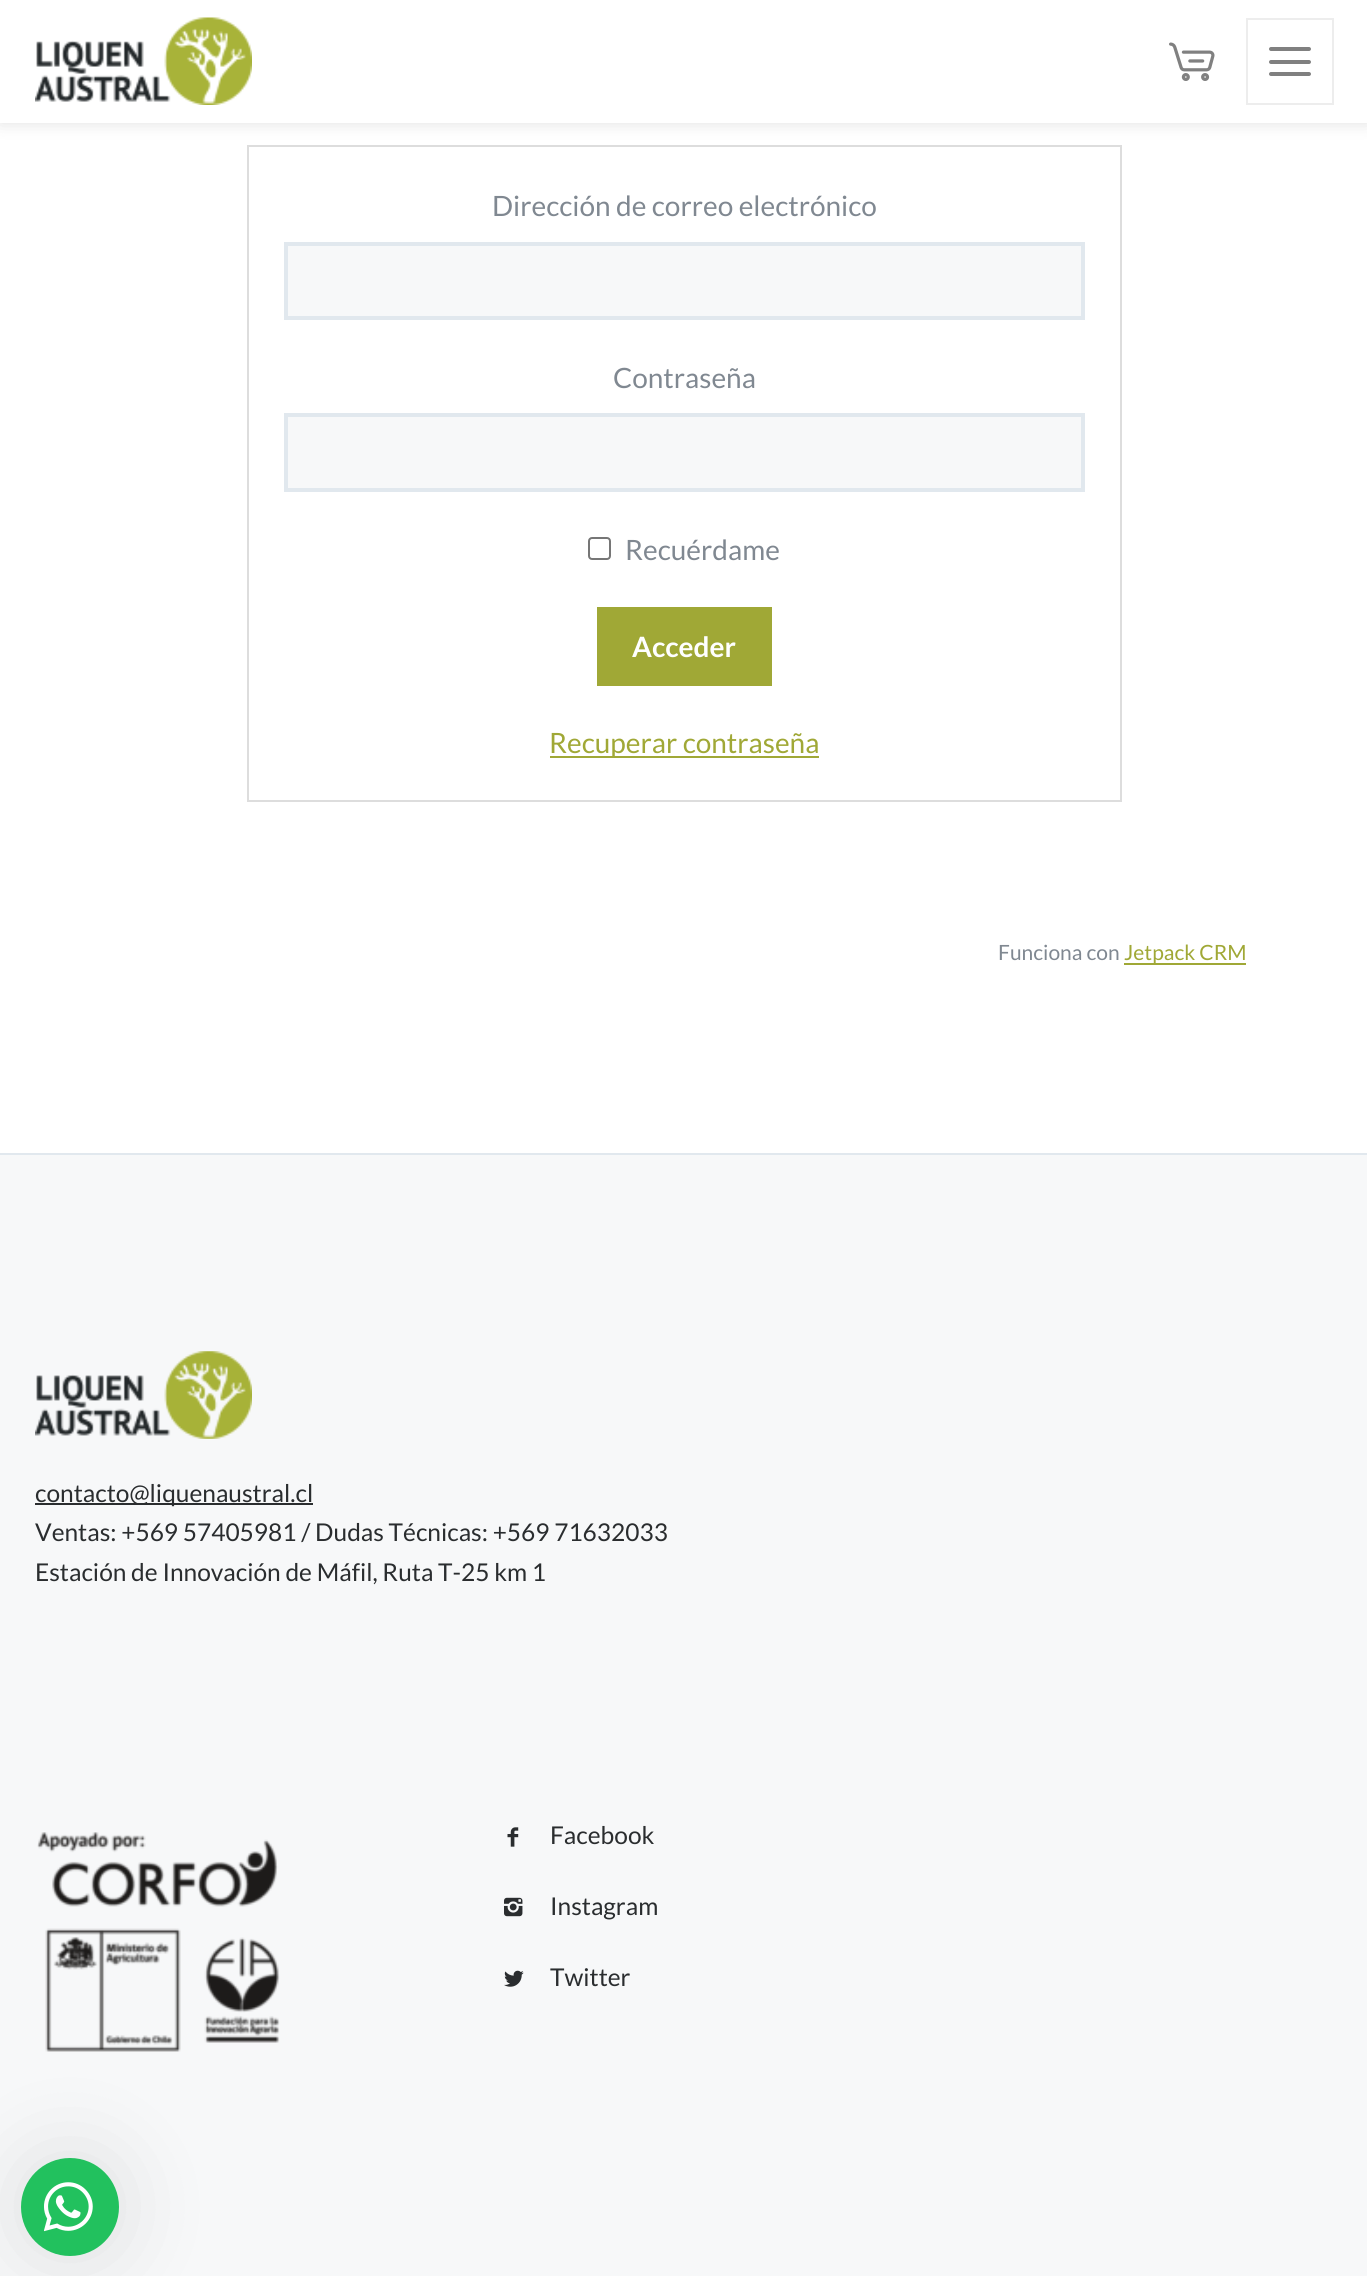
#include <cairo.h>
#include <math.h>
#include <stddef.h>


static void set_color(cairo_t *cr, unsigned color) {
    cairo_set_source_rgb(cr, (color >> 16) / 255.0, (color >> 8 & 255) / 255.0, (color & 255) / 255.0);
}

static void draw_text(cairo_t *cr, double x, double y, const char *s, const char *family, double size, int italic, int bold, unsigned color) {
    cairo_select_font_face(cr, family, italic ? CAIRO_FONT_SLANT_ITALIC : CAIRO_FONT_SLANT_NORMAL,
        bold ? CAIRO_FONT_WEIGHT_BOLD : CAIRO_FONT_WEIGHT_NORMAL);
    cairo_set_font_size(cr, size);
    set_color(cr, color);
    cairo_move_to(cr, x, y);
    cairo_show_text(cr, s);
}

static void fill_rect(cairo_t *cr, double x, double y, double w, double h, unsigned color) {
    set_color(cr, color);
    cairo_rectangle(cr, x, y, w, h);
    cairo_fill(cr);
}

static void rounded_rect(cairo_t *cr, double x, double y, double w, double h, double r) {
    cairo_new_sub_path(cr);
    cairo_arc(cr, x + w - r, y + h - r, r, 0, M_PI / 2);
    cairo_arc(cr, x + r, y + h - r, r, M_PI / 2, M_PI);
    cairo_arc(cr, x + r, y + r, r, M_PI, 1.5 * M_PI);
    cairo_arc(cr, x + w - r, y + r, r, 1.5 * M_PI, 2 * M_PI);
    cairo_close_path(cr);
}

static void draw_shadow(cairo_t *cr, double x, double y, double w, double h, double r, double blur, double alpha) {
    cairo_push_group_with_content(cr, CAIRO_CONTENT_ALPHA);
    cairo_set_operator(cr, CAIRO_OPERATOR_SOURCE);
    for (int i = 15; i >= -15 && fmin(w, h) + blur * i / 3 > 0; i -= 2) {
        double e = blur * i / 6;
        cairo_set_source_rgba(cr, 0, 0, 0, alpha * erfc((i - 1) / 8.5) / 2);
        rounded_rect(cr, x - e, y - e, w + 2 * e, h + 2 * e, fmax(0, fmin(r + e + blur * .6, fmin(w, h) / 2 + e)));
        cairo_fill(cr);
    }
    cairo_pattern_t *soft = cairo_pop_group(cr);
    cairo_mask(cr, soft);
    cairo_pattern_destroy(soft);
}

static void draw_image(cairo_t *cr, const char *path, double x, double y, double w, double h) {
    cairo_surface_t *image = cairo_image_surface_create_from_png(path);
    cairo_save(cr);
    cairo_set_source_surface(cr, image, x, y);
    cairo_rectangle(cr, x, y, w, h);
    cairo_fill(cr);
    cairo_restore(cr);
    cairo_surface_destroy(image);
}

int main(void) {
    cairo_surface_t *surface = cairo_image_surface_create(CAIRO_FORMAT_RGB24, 1367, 2276);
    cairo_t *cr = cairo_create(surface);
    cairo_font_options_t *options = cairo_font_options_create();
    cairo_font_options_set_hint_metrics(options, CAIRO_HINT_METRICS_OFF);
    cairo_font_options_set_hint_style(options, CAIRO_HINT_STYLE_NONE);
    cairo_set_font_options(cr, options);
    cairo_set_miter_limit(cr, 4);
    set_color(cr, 0xFFFFFF);
    cairo_paint(cr);
    cairo_rectangle(cr, 248, 146, 873, 655);
    set_color(cr, 0xDDDDDD);
    cairo_stroke(cr);
    set_color(cr, 0x000000);
    draw_shadow(cr, 0, 0, 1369, 123, 0, 9, 0.12);
    fill_rect(cr, 0, 0, 1367, 123, 0xFFFFFF);
    draw_image(cr, "assets/img1.png", 35, 17, 217, 88);
    draw_image(cr, "assets/img2.png", 1169, 42, 46, 39);
    cairo_rectangle(cr, 1247, 19, 86, 85);
    set_color(cr, 0xEDEDED);
    cairo_stroke(cr);
    set_color(cr, 0x808080);
    rounded_rect(cr, 1269, 47, 42, 4, 2);
    cairo_fill(cr);
    rounded_rect(cr, 1269, 60, 42, 4, 2);
    cairo_fill(cr);
    rounded_rect(cr, 1269, 72, 42, 4, 2);
    cairo_fill(cr);
    draw_text(cr, 492, 216, "Dirección de correo electrónico", "Lato", 28, 0, 0, 0x808891);
    set_color(cr, 0xF7F8F9);
    cairo_rectangle(cr, 286, 244, 797, 74);
    cairo_fill_preserve(cr);
    set_color(cr, 0xE1E8EE);
    cairo_set_line_width(cr, 4);
    cairo_stroke(cr);
    draw_text(cr, 613, 388, "Contraseña", "Lato", 28, 0, 0, 0x808891);
    set_color(cr, 0xF7F8F9);
    cairo_rectangle(cr, 286, 415, 797, 75);
    cairo_fill_preserve(cr);
    set_color(cr, 0xE1E8EE);
    cairo_stroke(cr);
    rounded_rect(cr, 589, 538, 21, 21, 3);
    set_color(cr, 0x767676);
    cairo_set_line_width(cr, 2);
    cairo_stroke(cr);
    draw_text(cr, 625, 560, "Recuérdame", "Lato", 28, 0, 0, 0x808891);
    fill_rect(cr, 597, 607, 175, 79, 0xA0A836);
    draw_text(cr, 632, 657, "Acceder", "Lato", 28, 0, 1, 0xFFFFFF);
    fill_rect(cr, 550, 756, 269, 2, 0xA0A836);
    draw_text(cr, 549, 753, "Recuperar contraseña", "Lato", 28, 0, 0, 0xA0A836);
    draw_text(cr, 998, 960, "Funciona con", "Lato", 21, 0, 0, 0x808891);
    fill_rect(cr, 1124, 963, 122, 2, 0xA0A836);
    draw_text(cr, 1124, 960, "Jetpack CRM", "Lato", 21, 0, 0, 0xA0A836);
    fill_rect(cr, 0, 1155, 1367, 1121, 0xF7F8F9);
    fill_rect(cr, 0, 1153, 1367, 2, 0xE1E8EE);
    draw_image(cr, "assets/img3.png", 35, 1351, 217, 88);
    fill_rect(cr, 35, 1503, 278, 2, 0x2A2D2F);
    draw_text(cr, 35, 1502, "contacto@liquenaustral.cl", "Lato", 24.5, 0, 0, 0x2A2D2F);
    draw_text(cr, 35, 1541, "Ventas: +569 57405981 / Dudas Técnicas: +569 71632033", "Lato", 24.5, 0, 0, 0x2A2D2F);
    draw_text(cr, 35, 1581, "Estación de Innovación de Máfil, Ruta T-25 km 1", "Lato", 24.5, 0, 0, 0x2A2D2F);
    draw_image(cr, "assets/img4.png", 37, 1832, 243, 220);
    draw_image(cr, "assets/img5.png", 507, 1827, 12, 20);
    draw_text(cr, 550, 1844, "Facebook", "Lato", 24.5, 0, 0, 0x2A2D2F);
    draw_image(cr, "assets/img6.png", 504, 1897, 19, 20);
    draw_text(cr, 550, 1915, "Instagram", "Lato", 24.5, 0, 0, 0x2A2D2F);
    draw_image(cr, "assets/img7.png", 504, 1970, 20, 17);
    draw_text(cr, 550, 1986, "Twitter", "Lato", 24.5, 0, 0, 0x2A2D2F);
    set_color(cr, 0x000000);
    draw_shadow(cr, 21, 2158, 98, 98, 49, 44, 0.1);
    set_color(cr, 0x22C15E);
    cairo_arc(cr, 70, 2207, 49, 0, 2 * M_PI);
    cairo_fill(cr);
    draw_image(cr, "assets/img8.png", 44, 2182, 49, 50);
    cairo_surface_write_to_png(surface, "output.png");
    cairo_font_options_destroy(options);
    cairo_destroy(cr);
    cairo_surface_destroy(surface);
    return 0;
}
